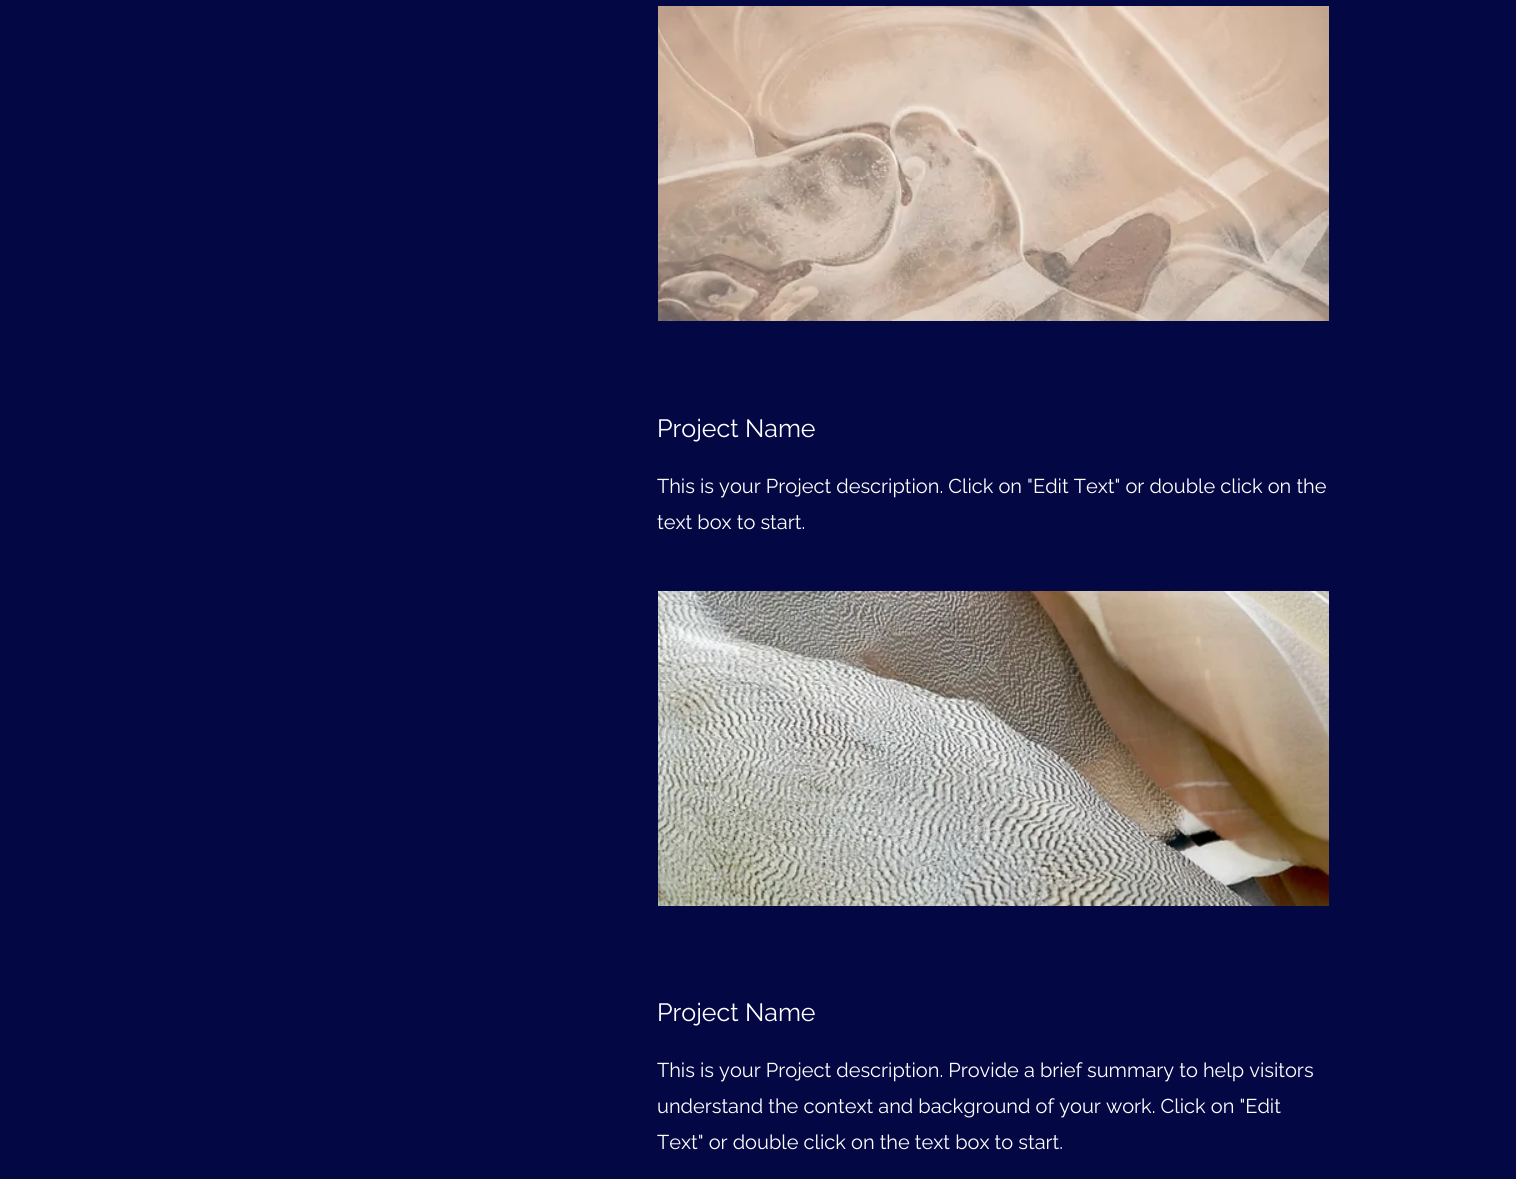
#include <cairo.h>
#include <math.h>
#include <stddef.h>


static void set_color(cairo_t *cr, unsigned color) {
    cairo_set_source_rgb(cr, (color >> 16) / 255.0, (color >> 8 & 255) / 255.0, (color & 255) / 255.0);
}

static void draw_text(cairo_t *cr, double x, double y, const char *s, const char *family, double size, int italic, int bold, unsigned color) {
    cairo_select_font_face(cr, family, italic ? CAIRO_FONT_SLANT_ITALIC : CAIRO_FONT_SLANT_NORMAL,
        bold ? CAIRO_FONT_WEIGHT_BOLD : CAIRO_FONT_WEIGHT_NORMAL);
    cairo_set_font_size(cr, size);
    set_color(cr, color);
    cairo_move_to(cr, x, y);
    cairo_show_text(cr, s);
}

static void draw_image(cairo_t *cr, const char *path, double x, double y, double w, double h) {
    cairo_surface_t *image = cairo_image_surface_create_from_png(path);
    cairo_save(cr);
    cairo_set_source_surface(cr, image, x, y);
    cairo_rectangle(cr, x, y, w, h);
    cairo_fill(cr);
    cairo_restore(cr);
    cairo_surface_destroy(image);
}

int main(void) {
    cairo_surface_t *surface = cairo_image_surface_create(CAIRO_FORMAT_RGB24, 1516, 1179);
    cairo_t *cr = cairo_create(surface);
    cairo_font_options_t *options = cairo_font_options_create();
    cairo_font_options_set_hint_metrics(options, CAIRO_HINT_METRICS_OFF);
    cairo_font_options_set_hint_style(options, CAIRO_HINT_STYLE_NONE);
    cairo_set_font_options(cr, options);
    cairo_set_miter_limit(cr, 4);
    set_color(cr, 0x030844);
    cairo_paint(cr);
    draw_image(cr, "assets/img1.png", 658, 6, 671, 315);
    draw_text(cr, 657, 437, "Project Name", "Raleway", 25, 0, 0, 0xFFFFFF);
    draw_text(cr, 657, 493, "This is your Project description. Click on \"Edit Text\" or double click on the", "Raleway", 20, 0, 0, 0xFFFFFF);
    draw_text(cr, 657, 529, "text box to start.", "Raleway", 20, 0, 0, 0xFFFFFF);
    draw_image(cr, "assets/img2.png", 658, 591, 671, 315);
    draw_text(cr, 657, 1021, "Project Name", "Raleway", 25, 0, 0, 0xFFFFFF);
    draw_text(cr, 657, 1077, "This is your Project description. Provide a brief summary to help visitors", "Raleway", 20, 0, 0, 0xFFFFFF);
    draw_text(cr, 657, 1113, "understand the context and background of your work. Click on \"Edit", "Raleway", 20, 0, 0, 0xFFFFFF);
    draw_text(cr, 657, 1149, "Text\" or double click on the text box to start.", "Raleway", 20, 0, 0, 0xFFFFFF);
    cairo_surface_write_to_png(surface, "output.png");
    cairo_font_options_destroy(options);
    cairo_destroy(cr);
    cairo_surface_destroy(surface);
    return 0;
}
